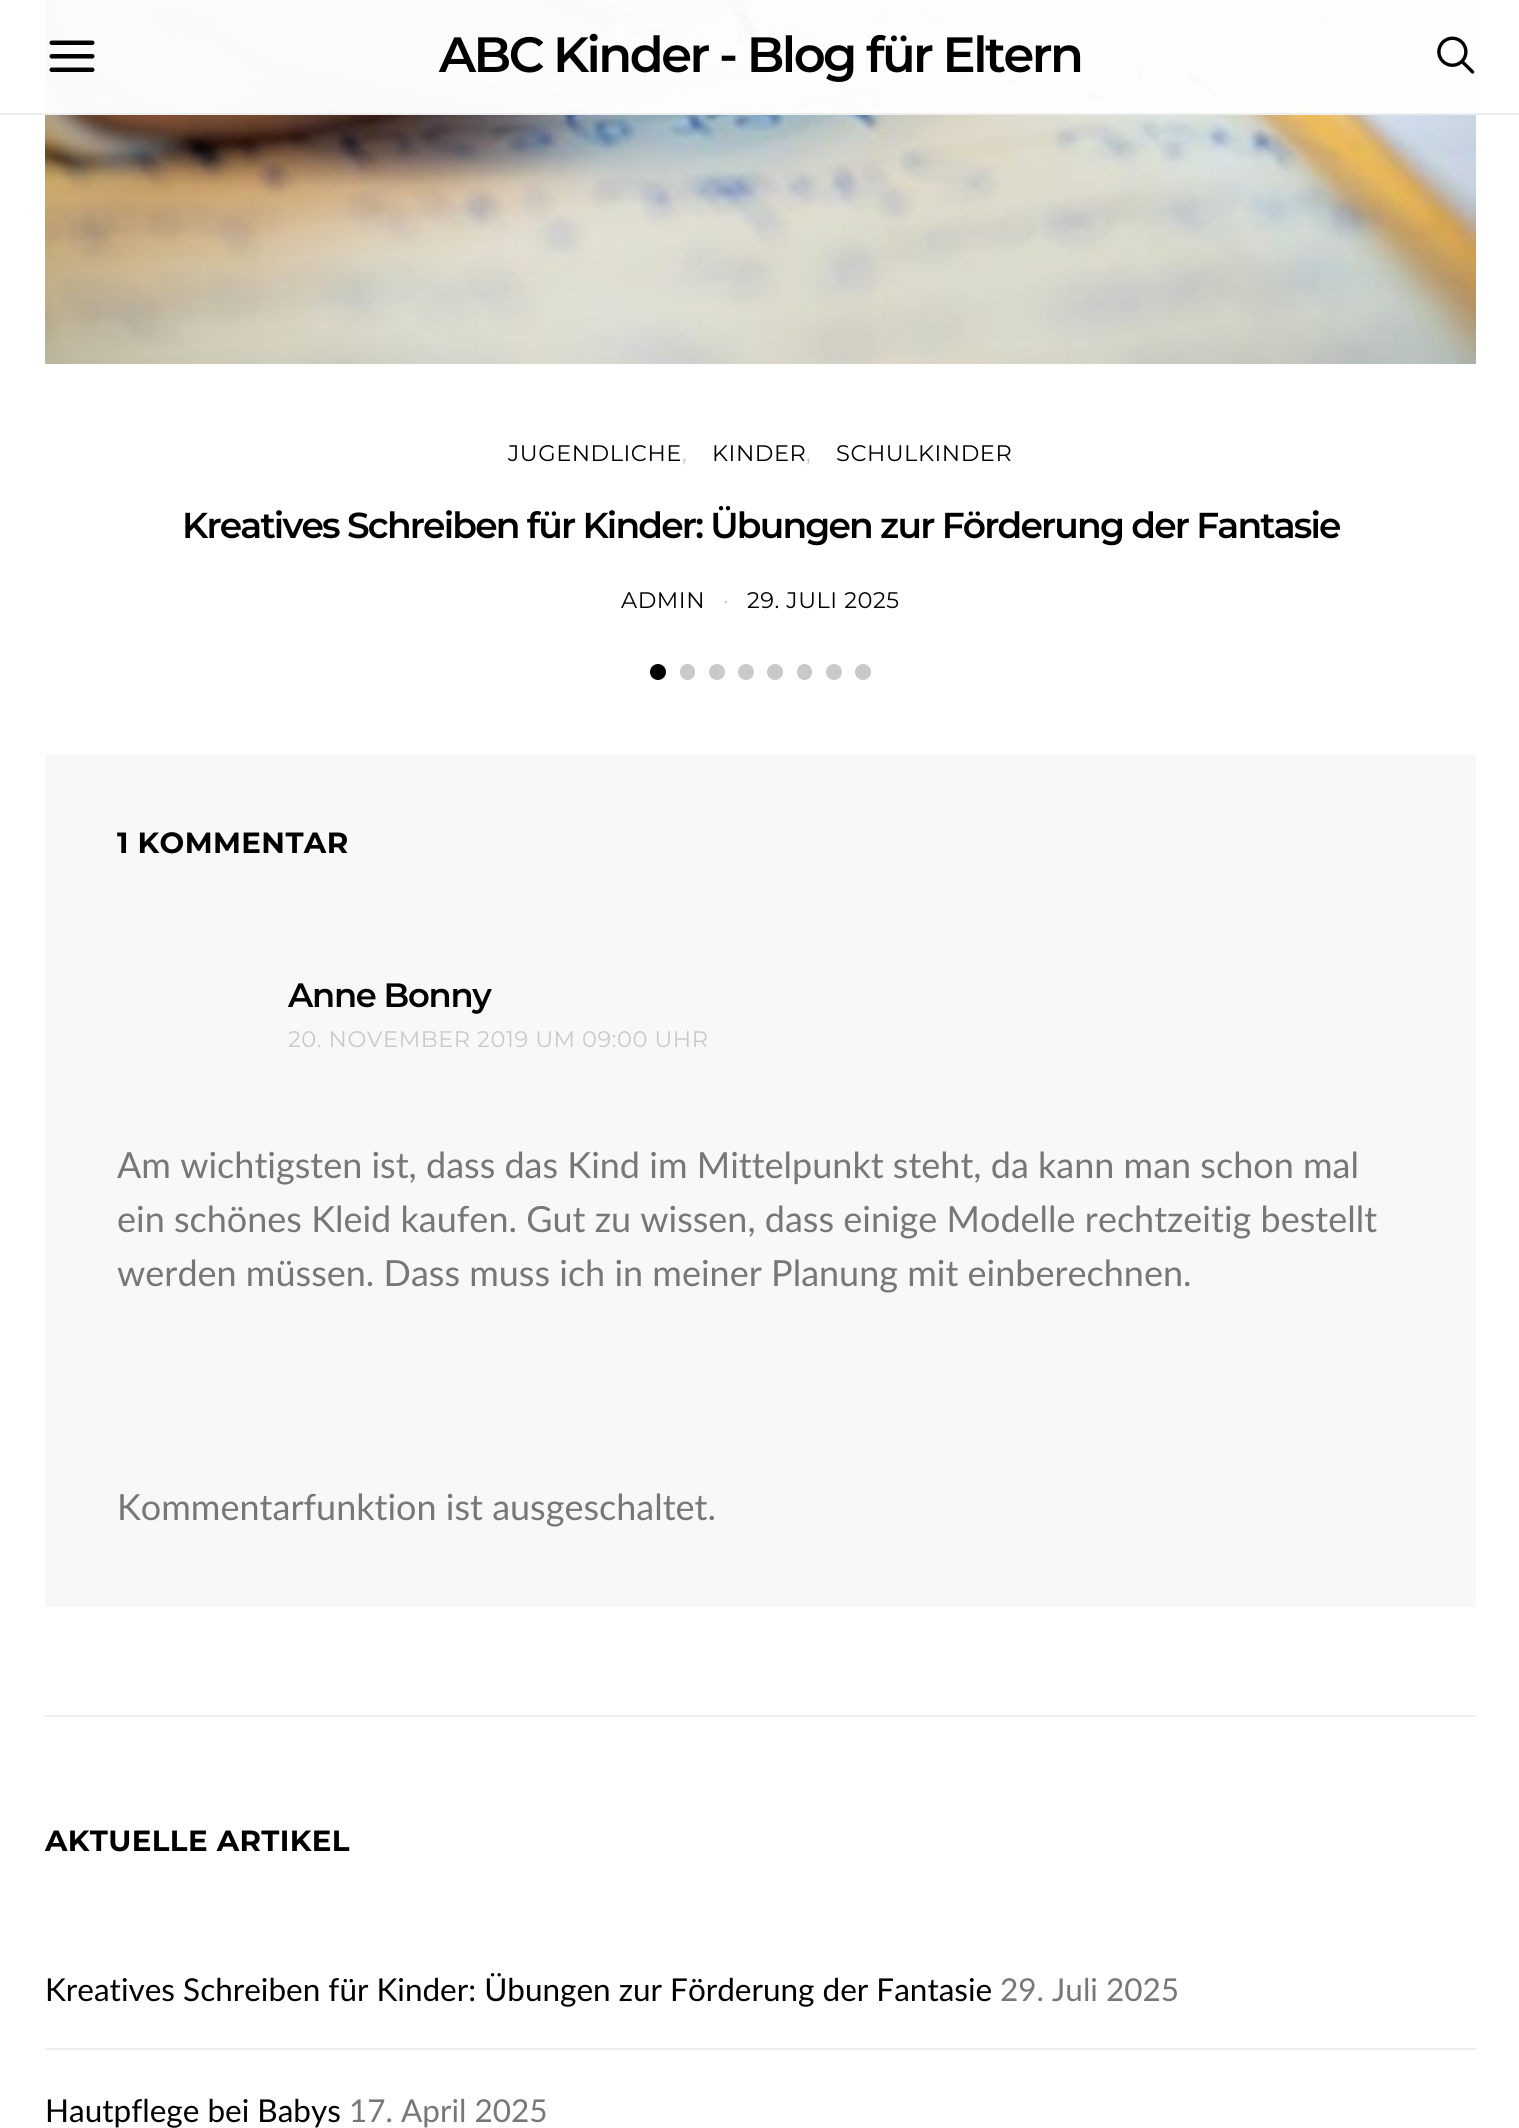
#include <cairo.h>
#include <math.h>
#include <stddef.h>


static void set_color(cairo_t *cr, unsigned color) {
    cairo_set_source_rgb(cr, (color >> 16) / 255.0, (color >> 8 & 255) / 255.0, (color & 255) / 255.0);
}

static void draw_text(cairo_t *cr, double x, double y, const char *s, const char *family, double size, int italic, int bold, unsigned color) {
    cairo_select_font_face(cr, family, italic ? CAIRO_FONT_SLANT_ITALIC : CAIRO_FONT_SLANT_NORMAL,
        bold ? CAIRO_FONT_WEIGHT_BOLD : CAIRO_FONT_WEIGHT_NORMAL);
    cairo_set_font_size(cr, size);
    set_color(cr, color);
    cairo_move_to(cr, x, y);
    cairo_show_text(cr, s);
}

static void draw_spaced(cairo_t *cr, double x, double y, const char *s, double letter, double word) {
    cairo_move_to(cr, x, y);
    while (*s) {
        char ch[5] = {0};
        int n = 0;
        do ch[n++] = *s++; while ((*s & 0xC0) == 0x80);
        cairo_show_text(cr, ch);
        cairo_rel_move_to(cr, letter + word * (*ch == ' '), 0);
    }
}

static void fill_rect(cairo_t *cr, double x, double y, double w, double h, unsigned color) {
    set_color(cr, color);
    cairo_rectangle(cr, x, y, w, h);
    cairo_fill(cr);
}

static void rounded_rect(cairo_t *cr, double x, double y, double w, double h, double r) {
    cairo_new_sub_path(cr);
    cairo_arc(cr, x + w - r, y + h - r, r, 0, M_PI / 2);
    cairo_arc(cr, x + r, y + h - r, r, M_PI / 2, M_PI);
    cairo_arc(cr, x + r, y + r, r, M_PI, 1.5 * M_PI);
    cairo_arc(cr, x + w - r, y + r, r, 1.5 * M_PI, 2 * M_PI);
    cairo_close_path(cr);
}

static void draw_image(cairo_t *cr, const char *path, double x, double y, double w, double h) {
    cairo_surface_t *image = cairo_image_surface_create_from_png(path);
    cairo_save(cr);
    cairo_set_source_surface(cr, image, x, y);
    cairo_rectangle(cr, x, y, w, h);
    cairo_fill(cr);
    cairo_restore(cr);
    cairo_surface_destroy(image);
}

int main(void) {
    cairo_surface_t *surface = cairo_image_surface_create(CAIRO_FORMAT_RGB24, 1519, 2128);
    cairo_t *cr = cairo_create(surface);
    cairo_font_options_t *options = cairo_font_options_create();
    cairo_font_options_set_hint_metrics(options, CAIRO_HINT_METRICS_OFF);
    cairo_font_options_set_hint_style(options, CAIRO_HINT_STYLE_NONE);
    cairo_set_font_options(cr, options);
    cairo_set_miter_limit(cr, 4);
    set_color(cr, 0xFFFFFF);
    cairo_paint(cr);
    draw_image(cr, "assets/img3.png", 45, 0, 1431, 364);
    cairo_set_source_rgba(cr, 1, 1, 1, 0.97);
    cairo_rectangle(cr, 45, 0, 1431, 113);
    cairo_fill(cr);
    fill_rect(cr, 0, 113, 1519, 2, 0xEEEEEE);
    draw_image(cr, "assets/img1.png", 49, 40, 46, 32);
    cairo_select_font_face(cr, "Montserrat SemiBold", CAIRO_FONT_SLANT_NORMAL, CAIRO_FONT_WEIGHT_NORMAL);
    cairo_set_font_size(cr, 49.5);
    set_color(cr, 0x000000);
    draw_spaced(cr, 439, 72, "ABC Kinder - Blog für Eltern", -2.5, 0);
    draw_image(cr, "assets/img2.png", 1437, 36, 38, 38);
    fill_rect(cr, 45, 1715, 1431, 2, 0xEEEEEE);
    cairo_select_font_face(cr, "Montserrat", CAIRO_FONT_SLANT_NORMAL, CAIRO_FONT_WEIGHT_NORMAL);
    cairo_set_font_size(cr, 22.5);
    set_color(cr, 0x000000);
    draw_spaced(cr, 508, 461, "JUGENDLICHE", 0.55, 0);
    set_color(cr, 0xC9C9C9);
    draw_spaced(cr, 682, 461, ",", 0.55, 0);
    set_color(cr, 0x000000);
    draw_spaced(cr, 712, 461, "KINDER", 0.55, 0);
    set_color(cr, 0xC9C9C9);
    draw_spaced(cr, 806, 461, ",", 0.55, 0);
    set_color(cr, 0x000000);
    draw_spaced(cr, 836, 461, "SCHULKINDER", 0.55, 0);
    cairo_select_font_face(cr, "Montserrat SemiBold", CAIRO_FONT_SLANT_NORMAL, CAIRO_FONT_WEIGHT_NORMAL);
    cairo_set_font_size(cr, 36);
    draw_spaced(cr, 182, 538, "Kreatives Schreiben für Kinder: Übungen zur Förderung der Fantasie", -1.8, 0);
    cairo_select_font_face(cr, "Montserrat", CAIRO_FONT_SLANT_NORMAL, CAIRO_FONT_WEIGHT_NORMAL);
    cairo_set_font_size(cr, 22.5);
    draw_spaced(cr, 621, 608, "ADMIN", 0.55, 0);
    set_color(cr, 0xC9C9C9);
    draw_spaced(cr, 723, 608, "·", 0.55, 0);
    set_color(cr, 0x000000);
    draw_spaced(cr, 747, 608, "29. JULI 2025", 0.55, 0);
    cairo_new_path(cr);
    cairo_arc(cr, 658, 672, 8, 0, 2 * M_PI);
    cairo_fill(cr);
    set_color(cr, 0xC9C9C9);
    rounded_rect(cr, 680, 664, 15, 16, 7.5);
    cairo_fill(cr);
    cairo_arc(cr, 717, 672, 8, 0, 2 * M_PI);
    cairo_fill(cr);
    cairo_arc(cr, 746, 672, 8, 0, 2 * M_PI);
    cairo_fill(cr);
    cairo_arc(cr, 775, 672, 8, 0, 2 * M_PI);
    cairo_fill(cr);
    rounded_rect(cr, 797, 664, 15, 16, 7.5);
    cairo_fill(cr);
    cairo_arc(cr, 834, 672, 8, 0, 2 * M_PI);
    cairo_fill(cr);
    cairo_arc(cr, 863, 672, 8, 0, 2 * M_PI);
    cairo_fill(cr);
    fill_rect(cr, 45, 754, 1431, 853, 0xF8F8F8);
    cairo_select_font_face(cr, "Montserrat", CAIRO_FONT_SLANT_NORMAL, CAIRO_FONT_WEIGHT_BOLD);
    cairo_set_font_size(cr, 29.25);
    set_color(cr, 0x000000);
    draw_spaced(cr, 117, 853, "1 KOMMENTAR", 0.4, 0);
    cairo_select_font_face(cr, "Montserrat SemiBold", CAIRO_FONT_SLANT_NORMAL, CAIRO_FONT_WEIGHT_NORMAL);
    cairo_set_font_size(cr, 33.75);
    draw_spaced(cr, 288, 1007, "Anne Bonny", -1.25, 0);
    cairo_select_font_face(cr, "Montserrat", CAIRO_FONT_SLANT_NORMAL, CAIRO_FONT_WEIGHT_NORMAL);
    cairo_set_font_size(cr, 22.5);
    set_color(cr, 0xC9C9C9);
    draw_spaced(cr, 288, 1047, "20. NOVEMBER 2019 UM 09:00 UHR", 0.55, 0);
    draw_text(cr, 117, 1178, "Am wichtigsten ist, dass das Kind im Mittelpunkt steht, da kann man schon mal", "Lato", 36, 0, 0, 0x777777);
    draw_text(cr, 117, 1232, "ein schönes Kleid kaufen. Gut zu wissen, dass einige Modelle rechtzeitig bestellt", "Lato", 36, 0, 0, 0x777777);
    draw_text(cr, 117, 1286, "werden müssen. Dass muss ich in meiner Planung mit einberechnen.", "Lato", 36, 0, 0, 0x777777);
    draw_text(cr, 117, 1520, "Kommentarfunktion ist ausgeschaltet.", "Lato", 36, 0, 0, 0x777777);
    cairo_select_font_face(cr, "Montserrat", CAIRO_FONT_SLANT_NORMAL, CAIRO_FONT_WEIGHT_BOLD);
    cairo_set_font_size(cr, 29.25);
    set_color(cr, 0x000000);
    draw_spaced(cr, 45, 1851, "AKTUELLE ARTIKEL", 0.4, 0);
    draw_text(cr, 45, 2001, "Kreatives Schreiben für Kinder: Übungen zur Förderung der Fantasie", "Lato", 31.5, 0, 0, 0x000000);
    draw_text(cr, 1000, 2001, "29. Juli 2025", "Lato", 31.5, 0, 0, 0x777777);
    fill_rect(cr, 45, 2048, 1431, 2, 0xEEEEEE);
    draw_text(cr, 45, 2122, "Hautpflege bei Babys", "Lato", 31.5, 0, 0, 0x000000);
    draw_text(cr, 349, 2122, "17. April 2025", "Lato", 31.5, 0, 0, 0x777777);
    cairo_surface_write_to_png(surface, "output.png");
    cairo_font_options_destroy(options);
    cairo_destroy(cr);
    cairo_surface_destroy(surface);
    return 0;
}
